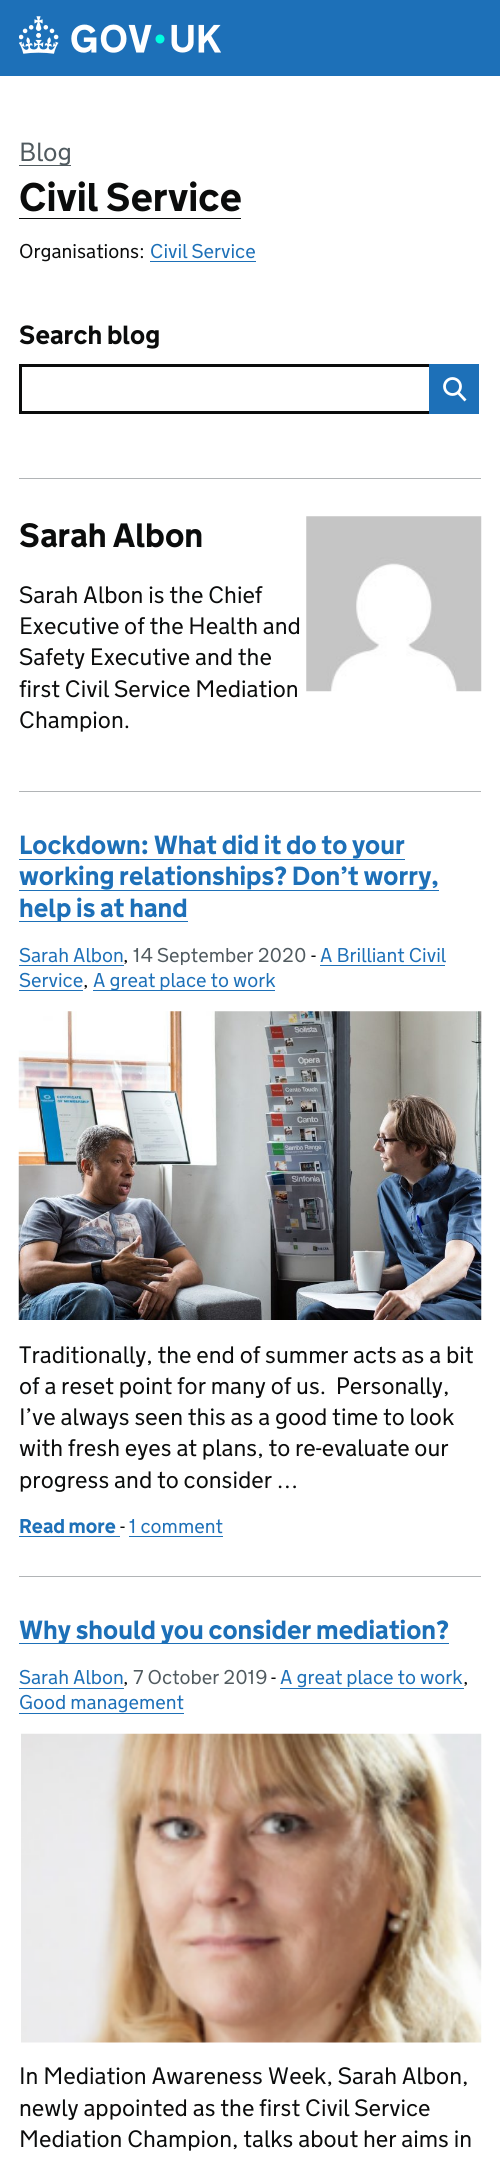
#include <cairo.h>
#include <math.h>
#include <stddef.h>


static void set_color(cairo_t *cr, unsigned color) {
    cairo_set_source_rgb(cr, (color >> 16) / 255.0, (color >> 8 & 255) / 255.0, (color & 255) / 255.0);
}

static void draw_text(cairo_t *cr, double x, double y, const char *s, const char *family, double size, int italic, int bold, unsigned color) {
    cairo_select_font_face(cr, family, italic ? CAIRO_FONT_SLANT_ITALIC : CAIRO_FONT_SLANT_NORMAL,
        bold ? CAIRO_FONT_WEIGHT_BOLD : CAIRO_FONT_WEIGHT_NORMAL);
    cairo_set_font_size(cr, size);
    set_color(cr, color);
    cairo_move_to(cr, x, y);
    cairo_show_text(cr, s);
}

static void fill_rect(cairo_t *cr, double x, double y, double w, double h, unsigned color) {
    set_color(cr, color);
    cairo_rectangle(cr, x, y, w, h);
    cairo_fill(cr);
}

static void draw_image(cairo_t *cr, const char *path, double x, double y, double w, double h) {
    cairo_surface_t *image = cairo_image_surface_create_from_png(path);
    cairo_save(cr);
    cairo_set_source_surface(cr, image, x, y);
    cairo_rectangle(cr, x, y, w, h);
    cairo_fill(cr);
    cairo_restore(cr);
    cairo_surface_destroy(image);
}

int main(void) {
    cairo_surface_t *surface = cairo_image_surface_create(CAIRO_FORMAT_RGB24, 500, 2168);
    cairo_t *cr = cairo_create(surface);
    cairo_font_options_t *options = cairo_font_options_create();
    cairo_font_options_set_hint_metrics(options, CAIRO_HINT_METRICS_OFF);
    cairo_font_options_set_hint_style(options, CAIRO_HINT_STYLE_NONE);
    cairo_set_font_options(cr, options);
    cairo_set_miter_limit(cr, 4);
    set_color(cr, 0xFFFFFF);
    cairo_paint(cr);
    fill_rect(cr, 0, 0, 500, 76, 0x1D70B8);
    draw_image(cr, "assets/img1.png", 19, 16, 202, 38);
    fill_rect(cr, 19, 165, 52, 1, 0x505A5F);
    draw_text(cr, 19, 161, "Blog", "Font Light", 26.25, 0, 0, 0x505A5F);
    draw_text(cr, 19, 211, "Civil Service", "Font", 40, 0, 1, 0x0B0C0C);
    fill_rect(cr, 19, 218, 222, 1, 0x0B0C0C);
    draw_text(cr, 19, 258, "Organisations:", "Font Light", 20, 0, 0, 0x0B0C0C);
    draw_text(cr, 150, 258, "Civil Service", "Font Light", 20, 0, 0, 0x1D70B8);
    fill_rect(cr, 150, 261, 106, 1, 0x1D70B8);
    draw_text(cr, 19, 344, "Search blog", "Font", 26.25, 0, 1, 0x0B0C0C);
    fill_rect(cr, 19, 364, 410, 3, 0x0B0C0C);
    fill_rect(cr, 19, 411, 410, 3, 0x0B0C0C);
    fill_rect(cr, 19, 364, 3, 50, 0x0B0C0C);
    fill_rect(cr, 429, 364, 50, 50, 0x1D70B8);
    cairo_new_path(cr);
    cairo_arc(cr, 452.5, 386.5, 8, 0, 2 * M_PI);
    set_color(cr, 0xFFFFFF);
    cairo_set_line_width(cr, 2.8);
    cairo_stroke(cr);
    cairo_new_path(cr);
    cairo_move_to(cr, 458, 392.5);
    cairo_line_to(cr, 465.5, 400.5);
    cairo_stroke(cr);
    fill_rect(cr, 19, 478, 462, 1, 0xB1B4B6);
    draw_text(cr, 19, 547, "Sarah Albon", "Font", 33.75, 0, 1, 0x0B0C0C);
    draw_text(cr, 19, 603, "Sarah Albon is the Chief", "Font Light", 23.75, 0, 0, 0x0B0C0C);
    draw_text(cr, 19, 634, "Executive of the Health and", "Font Light", 23.75, 0, 0, 0x0B0C0C);
    draw_text(cr, 19, 665, "Safety Executive and the", "Font Light", 23.75, 0, 0, 0x0B0C0C);
    draw_text(cr, 19, 697, "first Civil Service Mediation", "Font Light", 23.75, 0, 0, 0x0B0C0C);
    draw_text(cr, 19, 728, "Champion.", "Font Light", 23.75, 0, 0, 0x0B0C0C);
    draw_image(cr, "assets/img2.png", 306, 516, 176, 176);
    fill_rect(cr, 19, 791, 462, 1, 0xB1B4B6);
    draw_text(cr, 19, 854, "Lockdown: What did it do to your", "Font", 26.25, 0, 1, 0x1D70B8);
    fill_rect(cr, 19, 859, 386, 1, 0x1D70B8);
    draw_text(cr, 19, 885, "working relationships? Don’t worry,", "Font", 26.25, 0, 1, 0x1D70B8);
    fill_rect(cr, 19, 890, 420, 1, 0x1D70B8);
    fill_rect(cr, 19, 921, 169, 1, 0x1D70B8);
    draw_text(cr, 19, 917, "help is at hand", "Font", 26.25, 0, 1, 0x1D70B8);
    draw_text(cr, 19, 962, "Sarah Albon", "Font Light", 20, 0, 0, 0x1D70B8);
    fill_rect(cr, 19, 965, 105, 1, 0x1D70B8);
    draw_text(cr, 133, 962, "14 September 2020", "Font Light", 20, 0, 0, 0x505A5F);
    draw_text(cr, 311, 962, "-", "Font Light", 20, 0, 0, 0x0B0C0C);
    draw_text(cr, 320, 962, "A Brilliant Civil", "Font Light", 20, 0, 0, 0x1D70B8);
    fill_rect(cr, 320, 965, 125, 1, 0x1D70B8);
    draw_text(cr, 123, 962, ",", "Font Light", 20, 0, 0, 0x0B0C0C);
    draw_text(cr, 19, 987, "Service", "Font Light", 20, 0, 0, 0x1D70B8);
    fill_rect(cr, 19, 990, 64, 1, 0x1D70B8);
    draw_text(cr, 83, 987, ",", "Font Light", 20, 0, 0, 0x0B0C0C);
    fill_rect(cr, 93, 990, 182, 1, 0x1D70B8);
    draw_text(cr, 93, 987, "A great place to work", "Font Light", 20, 0, 0, 0x1D70B8);
    draw_image(cr, "assets/img3.png", 18, 1011, 464, 309);
    draw_text(cr, 19, 1363, "Traditionally, the end of summer acts as a bit", "Font Light", 23.75, 0, 0, 0x0B0C0C);
    draw_text(cr, 19, 1394, "of a reset point for many of us.  Personally,", "Font Light", 23.75, 0, 0, 0x0B0C0C);
    draw_text(cr, 19, 1425, "I’ve always seen this as a good time to look", "Font Light", 23.75, 0, 0, 0x0B0C0C);
    draw_text(cr, 19, 1456, "with fresh eyes at plans, to re-evaluate our", "Font Light", 23.75, 0, 0, 0x0B0C0C);
    draw_text(cr, 19, 1488, "progress and to consider …", "Font Light", 23.75, 0, 0, 0x0B0C0C);
    draw_text(cr, 19, 1533, "Read more", "Font", 20, 0, 1, 0x1D70B8);
    fill_rect(cr, 19, 1536, 101, 1, 0x1D70B8);
    draw_text(cr, 120, 1533, "-", "Font Light", 20, 0, 0, 0x0B0C0C);
    draw_text(cr, 129, 1533, "1 comment", "Font Light", 20, 0, 0, 0x1D70B8);
    fill_rect(cr, 129, 1536, 94, 1, 0x1D70B8);
    fill_rect(cr, 19, 1576, 462, 1, 0xB1B4B6);
    fill_rect(cr, 19, 1643, 430, 1, 0x1D70B8);
    draw_text(cr, 19, 1639, "Why should you consider mediation?", "Font", 26.25, 0, 1, 0x1D70B8);
    draw_text(cr, 19, 1684, "Sarah Albon", "Font Light", 20, 0, 0, 0x1D70B8);
    fill_rect(cr, 19, 1688, 105, 1, 0x1D70B8);
    draw_text(cr, 133, 1684, "7 October 2019", "Font Light", 20, 0, 0, 0x505A5F);
    draw_text(cr, 271, 1684, "-", "Font Light", 20, 0, 0, 0x0B0C0C);
    draw_text(cr, 280, 1684, "A great place to work", "Font Light", 20, 0, 0, 0x1D70B8);
    fill_rect(cr, 280, 1688, 184, 1, 0x1D70B8);
    draw_text(cr, 123, 1684, ",", "Font Light", 20, 0, 0, 0x0B0C0C);
    draw_text(cr, 463, 1684, ",", "Font Light", 20, 0, 0, 0x0B0C0C);
    draw_text(cr, 19, 1709, "Good management", "Font Light", 20, 0, 0, 0x1D70B8);
    fill_rect(cr, 19, 1713, 165, 1, 0x1D70B8);
    draw_image(cr, "assets/img4.png", 21, 1733, 461, 310);
    draw_text(cr, 19, 2084, "In Mediation Awareness Week, Sarah Albon,", "Font Light", 23.75, 0, 0, 0x0B0C0C);
    draw_text(cr, 19, 2116, "newly appointed as the first Civil Service", "Font Light", 23.75, 0, 0, 0x0B0C0C);
    draw_text(cr, 19, 2147, "Mediation Champion, talks about her aims in", "Font Light", 23.75, 0, 0, 0x0B0C0C);
    cairo_surface_write_to_png(surface, "output.png");
    cairo_font_options_destroy(options);
    cairo_destroy(cr);
    cairo_surface_destroy(surface);
    return 0;
}
